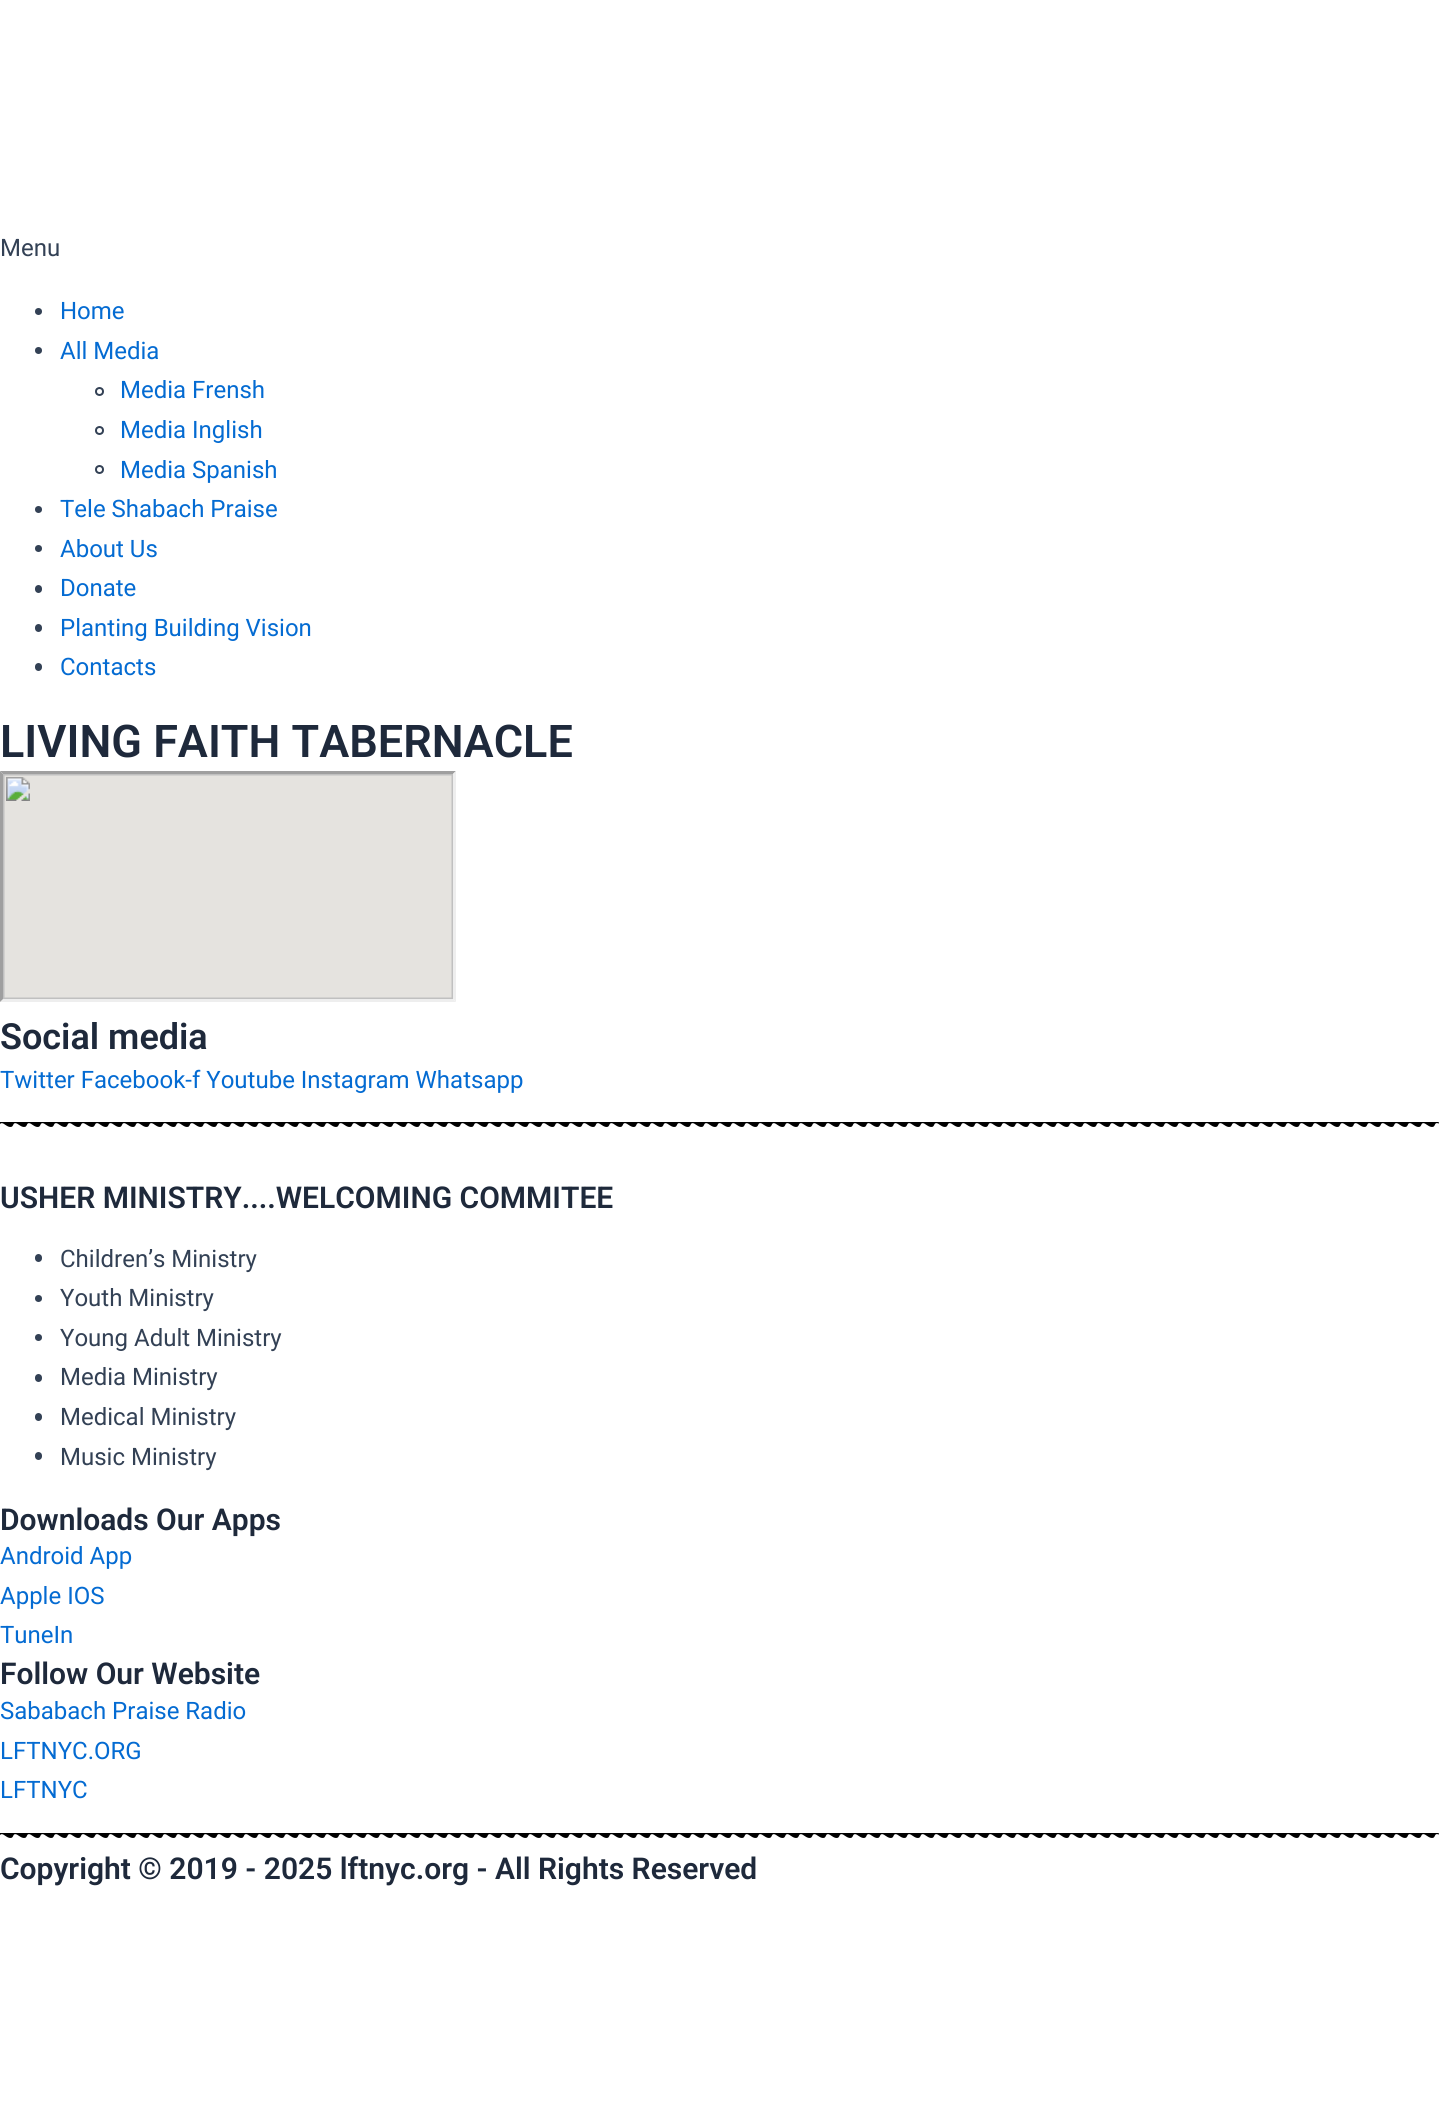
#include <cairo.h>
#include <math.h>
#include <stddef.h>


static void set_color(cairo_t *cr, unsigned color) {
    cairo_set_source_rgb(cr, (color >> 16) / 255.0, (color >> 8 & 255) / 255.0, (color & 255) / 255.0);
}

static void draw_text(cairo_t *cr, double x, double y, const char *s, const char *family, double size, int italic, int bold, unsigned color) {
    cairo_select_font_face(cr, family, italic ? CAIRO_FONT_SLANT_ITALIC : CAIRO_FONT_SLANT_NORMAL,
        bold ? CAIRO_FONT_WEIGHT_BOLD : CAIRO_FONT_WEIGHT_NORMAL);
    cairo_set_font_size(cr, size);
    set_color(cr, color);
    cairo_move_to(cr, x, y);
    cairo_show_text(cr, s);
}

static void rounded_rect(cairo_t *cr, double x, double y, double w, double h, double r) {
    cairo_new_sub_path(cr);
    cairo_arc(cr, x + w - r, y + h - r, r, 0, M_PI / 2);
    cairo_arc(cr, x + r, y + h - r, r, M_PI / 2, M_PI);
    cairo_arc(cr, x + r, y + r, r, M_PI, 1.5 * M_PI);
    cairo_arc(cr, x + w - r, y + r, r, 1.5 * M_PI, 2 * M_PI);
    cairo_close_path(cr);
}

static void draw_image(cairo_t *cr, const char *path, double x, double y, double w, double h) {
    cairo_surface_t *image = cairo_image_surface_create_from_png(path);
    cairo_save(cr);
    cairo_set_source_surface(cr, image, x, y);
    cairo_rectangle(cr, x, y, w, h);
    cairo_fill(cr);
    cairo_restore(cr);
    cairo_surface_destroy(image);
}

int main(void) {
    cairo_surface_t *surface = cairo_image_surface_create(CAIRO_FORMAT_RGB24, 1447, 2126);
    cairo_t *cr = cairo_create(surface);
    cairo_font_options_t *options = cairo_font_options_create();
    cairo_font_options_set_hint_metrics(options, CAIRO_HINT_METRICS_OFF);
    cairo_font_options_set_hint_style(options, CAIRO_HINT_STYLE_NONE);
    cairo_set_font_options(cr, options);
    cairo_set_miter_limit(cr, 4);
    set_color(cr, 0xFFFFFF);
    cairo_paint(cr);
    draw_text(cr, 0, 256, "Menu", "Roboto", 24, 0, 0, 0x334155);
    cairo_new_path(cr);
    cairo_arc(cr, 38.5, 311.5, 3.5, 0, 2 * M_PI);
    cairo_fill(cr);
    draw_text(cr, 60, 319, "Home", "Roboto", 24, 0, 0, 0x046BD2);
    set_color(cr, 0x334155);
    cairo_new_path(cr);
    cairo_arc(cr, 38.5, 350.5, 3.5, 0, 2 * M_PI);
    cairo_fill(cr);
    draw_text(cr, 60, 359, "All Media", "Roboto", 24, 0, 0, 0x046BD2);
    cairo_new_path(cr);
    cairo_arc(cr, 99.5, 391.5, 3.5, 0, 2 * M_PI);
    set_color(cr, 0x334155);
    cairo_stroke(cr);
    draw_text(cr, 120, 398, "Media Frensh", "Roboto", 24, 0, 0, 0x046BD2);
    cairo_new_path(cr);
    cairo_arc(cr, 99.5, 430.5, 3.5, 0, 2 * M_PI);
    set_color(cr, 0x334155);
    cairo_stroke(cr);
    draw_text(cr, 120, 438, "Media Inglish", "Roboto", 24, 0, 0, 0x046BD2);
    cairo_new_path(cr);
    cairo_arc(cr, 99.5, 469.5, 3.5, 0, 2 * M_PI);
    set_color(cr, 0x334155);
    cairo_stroke(cr);
    draw_text(cr, 120, 478, "Media Spanish", "Roboto", 24, 0, 0, 0x046BD2);
    set_color(cr, 0x334155);
    cairo_new_path(cr);
    cairo_arc(cr, 38.5, 509.5, 3.5, 0, 2 * M_PI);
    cairo_fill(cr);
    draw_text(cr, 60, 517, "Tele Shabach Praise", "Roboto", 24, 0, 0, 0x046BD2);
    set_color(cr, 0x334155);
    cairo_new_path(cr);
    cairo_arc(cr, 38.5, 548.5, 3.5, 0, 2 * M_PI);
    cairo_fill(cr);
    draw_text(cr, 60, 557, "About Us", "Roboto", 24, 0, 0, 0x046BD2);
    set_color(cr, 0x334155);
    rounded_rect(cr, 35, 585, 7, 8, 3.5);
    cairo_fill(cr);
    draw_text(cr, 60, 596, "Donate", "Roboto", 24, 0, 0, 0x046BD2);
    set_color(cr, 0x334155);
    rounded_rect(cr, 35, 624, 7, 8, 3.5);
    cairo_fill(cr);
    draw_text(cr, 60, 636, "Planting Building Vision", "Roboto", 24, 0, 0, 0x046BD2);
    set_color(cr, 0x334155);
    rounded_rect(cr, 35, 663, 7, 8, 3.5);
    cairo_fill(cr);
    draw_text(cr, 60, 675, "Contacts", "Roboto", 24, 0, 0, 0x046BD2);
    draw_text(cr, 0, 757, "LIVING FAITH TABERNACLE", "Roboto SemiBold", 45, 0, 0, 0x1E293B);
    set_color(cr, 0x9F9F9F);
    cairo_new_path(cr);
    cairo_move_to(cr, 0, 771);
    cairo_line_to(cr, 456, 771);
    cairo_line_to(cr, 453, 774);
    cairo_line_to(cr, 3, 774);
    cairo_close_path(cr);
    cairo_fill(cr);
    set_color(cr, 0xEEEEEE);
    cairo_new_path(cr);
    cairo_move_to(cr, 456, 771);
    cairo_line_to(cr, 456, 1002);
    cairo_line_to(cr, 453, 999);
    cairo_line_to(cr, 453, 774);
    cairo_close_path(cr);
    cairo_fill(cr);
    cairo_new_path(cr);
    cairo_move_to(cr, 456, 1002);
    cairo_line_to(cr, 0, 1002);
    cairo_line_to(cr, 3, 999);
    cairo_line_to(cr, 453, 999);
    cairo_close_path(cr);
    cairo_fill(cr);
    set_color(cr, 0x9F9F9F);
    cairo_new_path(cr);
    cairo_move_to(cr, 0, 1002);
    cairo_line_to(cr, 0, 771);
    cairo_line_to(cr, 3, 774);
    cairo_line_to(cr, 3, 999);
    cairo_close_path(cr);
    cairo_fill(cr);
    draw_image(cr, "assets/img1.png", 3, 774, 450, 225);
    draw_text(cr, 0, 1049, "Social media", "Roboto SemiBold", 36, 0, 0, 0x1E293B);
    draw_text(cr, 0, 1088, "Twitter Facebook-f Youtube Instagram Whatsapp", "Roboto", 24, 0, 0, 0x046BD2);
    draw_image(cr, "assets/img2.png", 0, 1122, 1439, 5);
    draw_text(cr, 0, 1208, "USHER MINISTRY....WELCOMING COMMITEE", "Roboto SemiBold", 30, 0, 0, 0x1E293B);
    set_color(cr, 0x334155);
    rounded_rect(cr, 35, 1254, 7, 8, 3.5);
    cairo_fill(cr);
    draw_text(cr, 60, 1267, "Children’s Ministry", "Roboto", 24, 0, 0, 0x334155);
    cairo_new_path(cr);
    cairo_arc(cr, 38.5, 1298.5, 3.5, 0, 2 * M_PI);
    cairo_fill(cr);
    draw_text(cr, 60, 1306, "Youth Ministry", "Roboto", 24, 0, 0, 0x334155);
    cairo_new_path(cr);
    cairo_arc(cr, 38.5, 1337.5, 3.5, 0, 2 * M_PI);
    cairo_fill(cr);
    draw_text(cr, 60, 1346, "Young Adult Ministry", "Roboto", 24, 0, 0, 0x334155);
    rounded_rect(cr, 35, 1374, 7, 8, 3.5);
    cairo_fill(cr);
    draw_text(cr, 60, 1385, "Media Ministry", "Roboto", 24, 0, 0, 0x334155);
    rounded_rect(cr, 35, 1413, 7, 8, 3.5);
    cairo_fill(cr);
    draw_text(cr, 60, 1425, "Medical Ministry", "Roboto", 24, 0, 0, 0x334155);
    rounded_rect(cr, 35, 1452, 7, 8, 3.5);
    cairo_fill(cr);
    draw_text(cr, 60, 1465, "Music Ministry", "Roboto", 24, 0, 0, 0x334155);
    draw_text(cr, 0, 1530, "Downloads Our Apps", "Roboto SemiBold", 30, 0, 0, 0x1E293B);
    draw_text(cr, 0, 1564, "Android App", "Roboto", 24, 0, 0, 0x046BD2);
    draw_text(cr, 0, 1604, "Apple IOS", "Roboto", 24, 0, 0, 0x046BD2);
    draw_text(cr, 0, 1643, "TuneIn", "Roboto", 24, 0, 0, 0x046BD2);
    draw_text(cr, 0, 1684, "Follow Our Website", "Roboto SemiBold", 30, 0, 0, 0x1E293B);
    draw_text(cr, 0, 1719, "Sababach Praise Radio", "Roboto", 24, 0, 0, 0x046BD2);
    draw_text(cr, 0, 1759, "LFTNYC.ORG", "Roboto", 24, 0, 0, 0x046BD2);
    draw_text(cr, 0, 1798, "LFTNYC", "Roboto", 24, 0, 0, 0x046BD2);
    draw_image(cr, "assets/img2.png", 0, 1833, 1439, 5);
    draw_text(cr, 0, 1879, "Copyright © 2019 - 2025 lftnyc.org - All Rights Reserved", "Roboto SemiBold", 30, 0, 0, 0x1E293B);
    cairo_surface_write_to_png(surface, "output.png");
    cairo_font_options_destroy(options);
    cairo_destroy(cr);
    cairo_surface_destroy(surface);
    return 0;
}
